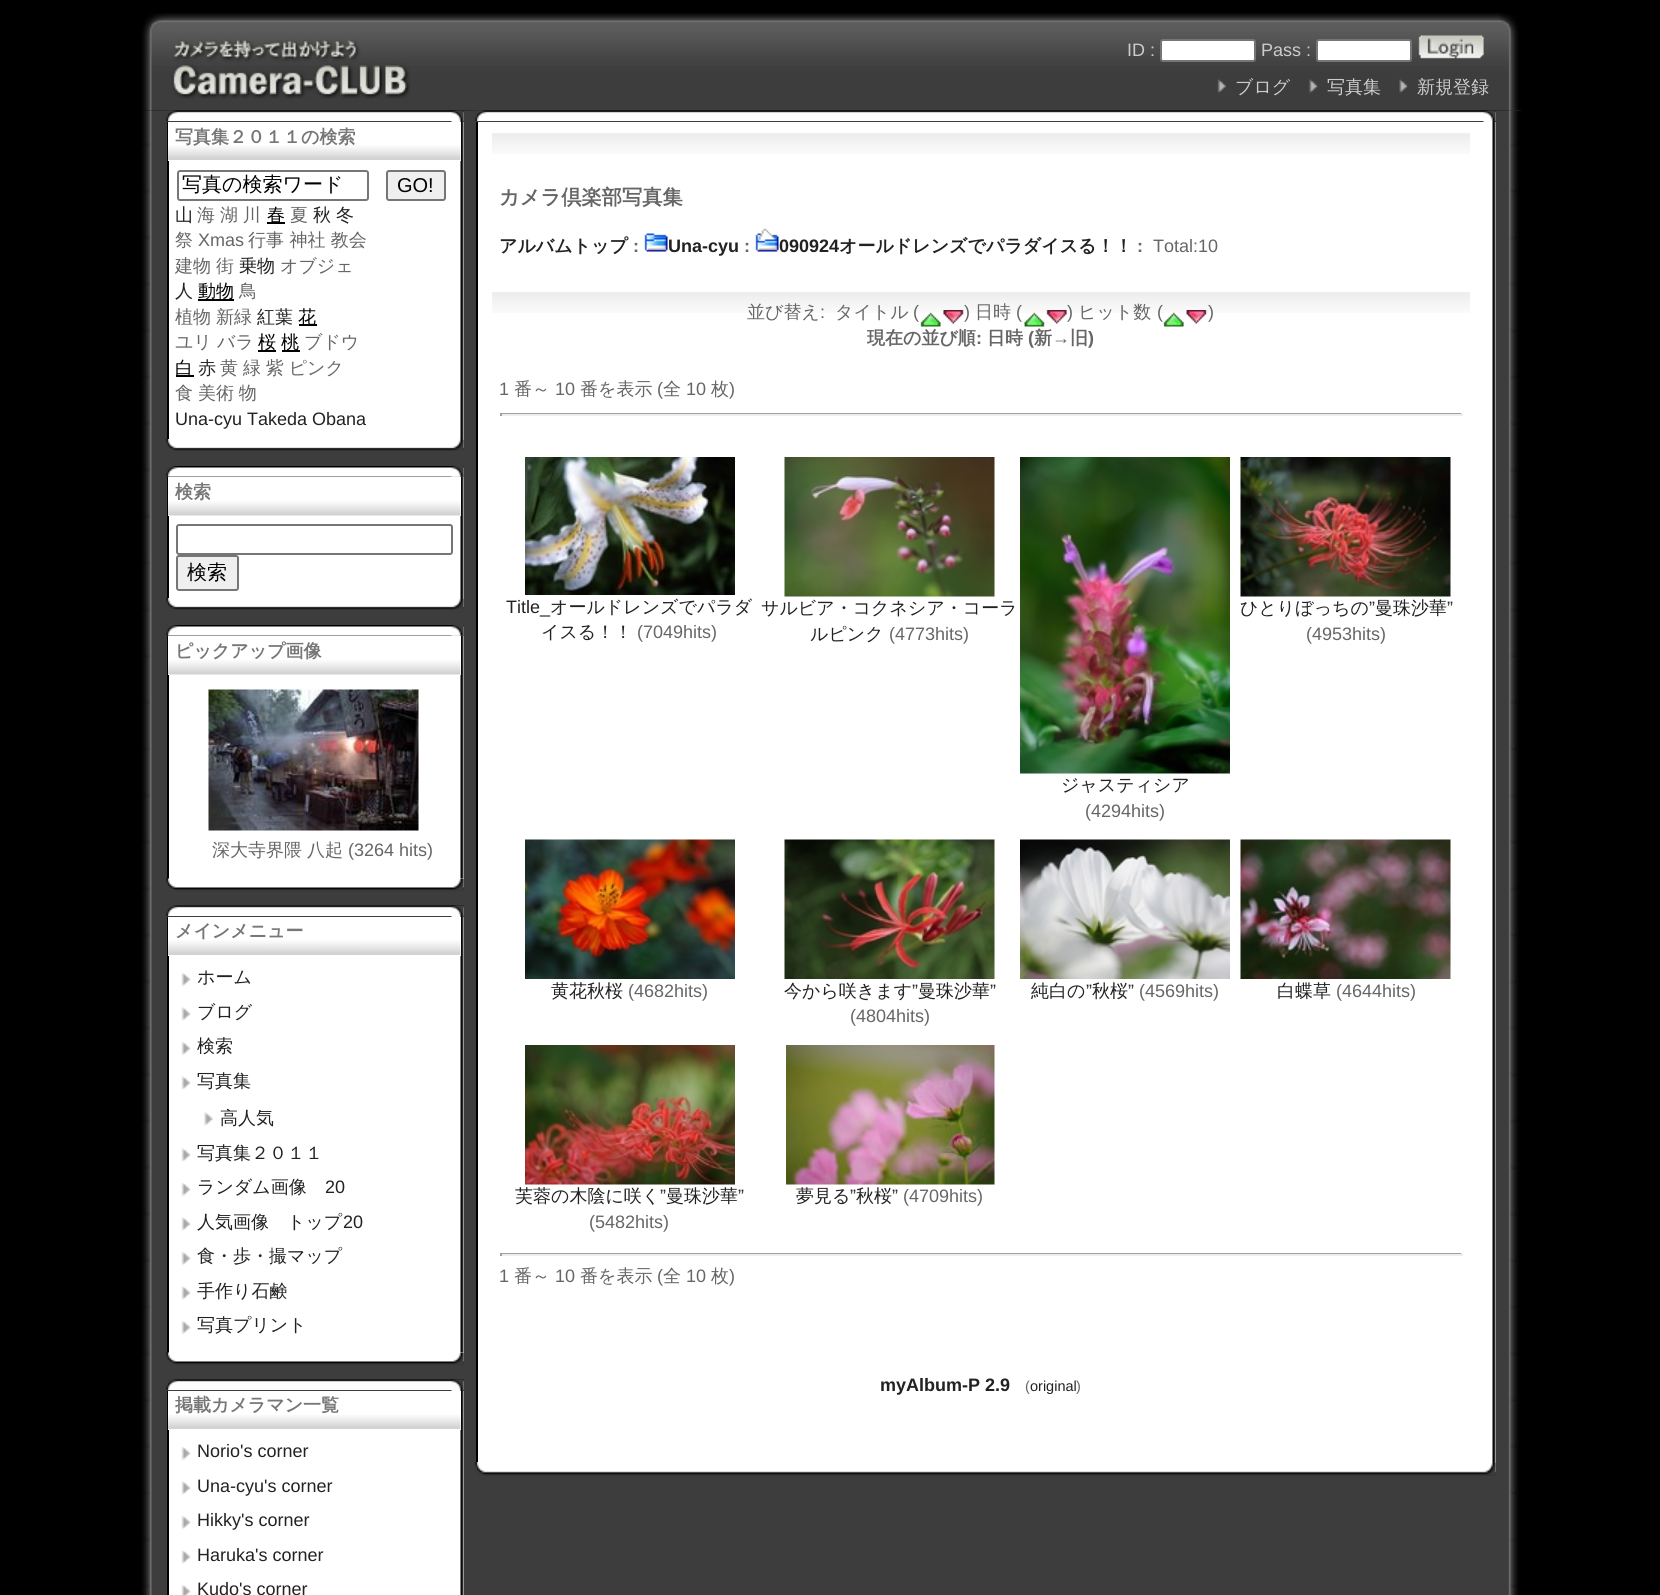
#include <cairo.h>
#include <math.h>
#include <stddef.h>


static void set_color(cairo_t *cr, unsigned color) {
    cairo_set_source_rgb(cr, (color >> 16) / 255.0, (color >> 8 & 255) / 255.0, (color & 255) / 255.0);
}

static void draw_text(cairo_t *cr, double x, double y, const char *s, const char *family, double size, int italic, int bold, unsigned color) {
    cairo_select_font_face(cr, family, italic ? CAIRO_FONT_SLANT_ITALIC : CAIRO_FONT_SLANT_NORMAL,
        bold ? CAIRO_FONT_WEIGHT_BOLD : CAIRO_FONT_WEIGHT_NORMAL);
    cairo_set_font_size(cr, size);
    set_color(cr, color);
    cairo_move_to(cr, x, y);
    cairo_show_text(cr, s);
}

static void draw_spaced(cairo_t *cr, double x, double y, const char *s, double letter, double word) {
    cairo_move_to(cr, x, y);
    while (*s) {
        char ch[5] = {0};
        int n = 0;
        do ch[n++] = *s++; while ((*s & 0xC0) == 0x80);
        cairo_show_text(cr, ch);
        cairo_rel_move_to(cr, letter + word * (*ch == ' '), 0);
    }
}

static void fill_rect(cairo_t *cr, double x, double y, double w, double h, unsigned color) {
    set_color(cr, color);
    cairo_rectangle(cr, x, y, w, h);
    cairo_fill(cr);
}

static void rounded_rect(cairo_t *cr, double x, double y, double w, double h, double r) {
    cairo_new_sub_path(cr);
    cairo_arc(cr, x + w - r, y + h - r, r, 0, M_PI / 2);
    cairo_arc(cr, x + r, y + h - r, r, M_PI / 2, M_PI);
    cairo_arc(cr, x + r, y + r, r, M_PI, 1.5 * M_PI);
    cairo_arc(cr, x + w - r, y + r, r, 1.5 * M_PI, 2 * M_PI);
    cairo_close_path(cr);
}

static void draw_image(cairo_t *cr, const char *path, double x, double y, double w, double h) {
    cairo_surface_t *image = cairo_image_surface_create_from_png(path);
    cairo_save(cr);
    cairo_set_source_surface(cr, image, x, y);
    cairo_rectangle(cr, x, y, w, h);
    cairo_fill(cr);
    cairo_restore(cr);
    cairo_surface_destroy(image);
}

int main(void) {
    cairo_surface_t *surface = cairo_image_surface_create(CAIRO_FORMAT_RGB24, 1660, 1595);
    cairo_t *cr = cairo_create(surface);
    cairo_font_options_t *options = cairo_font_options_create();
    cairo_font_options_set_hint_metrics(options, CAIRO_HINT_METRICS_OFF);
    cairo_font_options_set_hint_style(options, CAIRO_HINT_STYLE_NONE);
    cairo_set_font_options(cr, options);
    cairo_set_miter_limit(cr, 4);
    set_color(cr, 0x000000);
    cairo_paint(cr);
    draw_image(cr, "assets/img1.png", 143, 13, 1357, 18);
    draw_image(cr, "assets/img2.png", 1500, 13, 21, 18);
    draw_image(cr, "assets/img3.png", 141, 31, 1380, 80);
    draw_image(cr, "assets/img4.png", 1508, 31, 13, 80);
    draw_image(cr, "assets/img5.png", 172, 39, 238, 60);
    draw_text(cr, 1127, 56, "ID :", "Liberation Sans", 18, 0, 0, 0xCCCCCC);
    set_color(cr, 0xFFFFFF);
    rounded_rect(cr, 1161, 40, 94, 21, 2);
    cairo_fill_preserve(cr);
    set_color(cr, 0x767676);
    cairo_stroke(cr);
    draw_text(cr, 1261, 56, "Pass :", "Liberation Sans", 18, 0, 0, 0xCCCCCC);
    set_color(cr, 0xFFFFFF);
    rounded_rect(cr, 1317, 40, 94, 21, 2);
    cairo_fill_preserve(cr);
    set_color(cr, 0x767676);
    cairo_stroke(cr);
    draw_image(cr, "assets/img6.png", 1418, 35, 66, 24);
    draw_image(cr, "assets/img7.png", 1217, 79, 9, 15);
    draw_text(cr, 1235, 93, "ブログ", "WenQuanYi Zen Hei Medium", 18, 0, 0, 0xCCCCCC);
    draw_image(cr, "assets/img8.png", 1309, 79, 9, 15);
    draw_text(cr, 1327, 93, "写真集", "WenQuanYi Zen Hei Medium", 18, 0, 0, 0xCCCCCC);
    draw_image(cr, "assets/img8.png", 1399, 79, 9, 15);
    draw_text(cr, 1417, 93, "新規登録", "WenQuanYi Zen Hei Medium", 18, 0, 0, 0xCCCCCC);
    draw_image(cr, "assets/img9.png", 141, 110, 1380, 1485);
    draw_image(cr, "assets/img10.png", 1508, 110, 13, 1485);
    draw_image(cr, "assets/img11.png", 166, 110, 298, 11);
    draw_image(cr, "assets/img12.png", 451, 110, 13, 11);
    fill_rect(cr, 169, 122, 295, 318, 0xFFFFFF);
    draw_image(cr, "assets/img13.png", 451, 121, 13, 318);
    fill_rect(cr, 167, 122, 2, 318, 0x000000);
    fill_rect(cr, 168, 122, 293, 39, 0xFFFFFF);
    draw_image(cr, "assets/img14.png", 168, 145, 293, 15);
    draw_text(cr, 175, 143, "写真集２０１１の検索", "WenQuanYi Zen Hei", 18, 0, 1, 0x777777);
    rounded_rect(cr, 178, 171, 190, 29, 2);
    set_color(cr, 0x767676);
    cairo_stroke(cr);
    draw_text(cr, 182, 191, "写真の検索ワード", "WenQuanYi Zen Hei Medium", 20, 0, 0, 0x000000);
    set_color(cr, 0xEFEFEF);
    rounded_rect(cr, 387, 171, 58, 29, 2);
    cairo_fill_preserve(cr);
    set_color(cr, 0x767676);
    cairo_stroke(cr);
    draw_text(cr, 397, 192, "GO!", "Liberation Sans", 20, 0, 0, 0x000000);
    draw_text(cr, 175, 221, "山", "WenQuanYi Zen Hei Medium", 18, 0, 0, 0x222222);
    set_color(cr, 0x666666);
    draw_spaced(cr, 197, 221, "海 湖 川", 0, -0.5);
    fill_rect(cr, 267, 222, 18, 2, 0x000000);
    draw_text(cr, 267, 221, "春", "WenQuanYi Zen Hei Medium", 18, 0, 0, 0x000000);
    draw_text(cr, 290, 221, "夏", "WenQuanYi Zen Hei Medium", 18, 0, 0, 0x666666);
    draw_text(cr, 313, 221, "秋", "WenQuanYi Zen Hei Medium", 18, 0, 0, 0x222222);
    draw_text(cr, 336, 221, "冬", "WenQuanYi Zen Hei Medium", 18, 0, 0, 0x222222);
    draw_text(cr, 175, 246, "祭", "WenQuanYi Zen Hei Medium", 18, 0, 0, 0x666666);
    draw_text(cr, 198, 246, "Xmas", "Liberation Sans", 18, 0, 0, 0x666666);
    draw_text(cr, 248, 246, "行事 神社 教会", "WenQuanYi Zen Hei Medium", 18, 0, 0, 0x666666);
    draw_spaced(cr, 175, 272, "建物 街", 0, -0.5);
    draw_text(cr, 239, 272, "乗物", "WenQuanYi Zen Hei Medium", 18, 0, 0, 0x222222);
    draw_text(cr, 280, 272, "オブジェ", "WenQuanYi Zen Hei Medium", 18, 0, 0, 0x666666);
    draw_text(cr, 175, 297, "人", "WenQuanYi Zen Hei Medium", 18, 0, 0, 0x222222);
    fill_rect(cr, 198, 299, 36, 2, 0x000000);
    draw_text(cr, 198, 297, "動物", "WenQuanYi Zen Hei Medium", 18, 0, 0, 0x000000);
    draw_text(cr, 239, 297, "鳥", "WenQuanYi Zen Hei Medium", 18, 0, 0, 0x666666);
    draw_spaced(cr, 175, 323, "植物 新緑", 0, -0.5);
    draw_text(cr, 257, 323, "紅葉", "WenQuanYi Zen Hei Medium", 18, 0, 0, 0x222222);
    fill_rect(cr, 299, 324, 18, 2, 0x000000);
    draw_text(cr, 298, 323, "花", "WenQuanYi Zen Hei Medium", 18, 0, 0, 0x000000);
    draw_text(cr, 175, 348, "ユリ", "WenQuanYi Zen Hei Medium", 18, 0, 0, 0x666666);
    draw_text(cr, 217, 348, "バラ", "WenQuanYi Zen Hei Medium", 18, 0, 0, 0x666666);
    fill_rect(cr, 258, 350, 18, 2, 0x000000);
    draw_text(cr, 258, 348, "桜", "WenQuanYi Zen Hei Medium", 18, 0, 0, 0x000000);
    fill_rect(cr, 282, 350, 18, 2, 0x000000);
    draw_text(cr, 281, 348, "桃", "WenQuanYi Zen Hei Medium", 18, 0, 0, 0x000000);
    draw_text(cr, 304, 348, "ブドウ", "WenQuanYi Zen Hei Medium", 18, 0, 0, 0x666666);
    fill_rect(cr, 176, 375, 18, 2, 0x000000);
    draw_text(cr, 175, 374, "白", "WenQuanYi Zen Hei Medium", 18, 0, 0, 0x000000);
    draw_text(cr, 198, 374, "赤", "WenQuanYi Zen Hei Medium", 18, 0, 0, 0x222222);
    set_color(cr, 0x666666);
    draw_spaced(cr, 220, 374, "黄 緑 紫 ピンク", 0, -0.5);
    draw_spaced(cr, 175, 399, "食 美術 物", 0, -0.5);
    draw_text(cr, 175, 425, "Una-cyu Takeda Obana", "Liberation Sans", 18, 0, 0, 0x222222);
    draw_image(cr, "assets/img15.png", 166, 439, 298, 12);
    draw_image(cr, "assets/img16.png", 452, 439, 12, 12);
    draw_image(cr, "assets/img17.png", 166, 466, 298, 11);
    draw_image(cr, "assets/img18.png", 451, 466, 13, 11);
    fill_rect(cr, 169, 477, 295, 122, 0xFFFFFF);
    draw_image(cr, "assets/img19.png", 451, 476, 13, 122);
    fill_rect(cr, 167, 477, 2, 122, 0x000000);
    fill_rect(cr, 168, 477, 293, 39, 0xFFFFFF);
    draw_image(cr, "assets/img20.png", 168, 501, 293, 15);
    draw_text(cr, 175, 498, "検索", "WenQuanYi Zen Hei", 18, 0, 1, 0x777777);
    rounded_rect(cr, 177, 525, 275, 29, 2);
    set_color(cr, 0x767676);
    cairo_stroke(cr);
    set_color(cr, 0xEFEFEF);
    rounded_rect(cr, 177, 556, 61, 34, 2);
    cairo_fill_preserve(cr);
    set_color(cr, 0x767676);
    cairo_stroke(cr);
    draw_text(cr, 187, 579, "検索", "WenQuanYi Zen Hei Medium", 20, 0, 0, 0x000000);
    draw_image(cr, "assets/img15.png", 166, 598, 298, 12);
    draw_image(cr, "assets/img16.png", 452, 598, 12, 12);
    draw_image(cr, "assets/img17.png", 166, 625, 298, 11);
    draw_image(cr, "assets/img18.png", 451, 625, 13, 11);
    fill_rect(cr, 169, 636, 295, 243, 0xFFFFFF);
    draw_image(cr, "assets/img21.png", 451, 635, 13, 244);
    fill_rect(cr, 167, 636, 2, 243, 0x000000);
    fill_rect(cr, 168, 636, 293, 39, 0xFFFFFF);
    draw_image(cr, "assets/img20.png", 168, 660, 293, 15);
    draw_text(cr, 175, 657, "ピックアップ画像", "WenQuanYi Zen Hei", 18, 0, 1, 0x777777);
    draw_image(cr, "assets/img22.png", 208, 689, 211, 142);
    draw_text(cr, 212, 856, "深大寺界隈", "WenQuanYi Zen Hei Medium", 18, 0, 0, 0x666666);
    draw_text(cr, 307, 856, "八起", "WenQuanYi Zen Hei Medium", 18, 0, 0, 0x666666);
    draw_text(cr, 348, 856, "(3264 hits)", "Liberation Sans", 18, 0, 0, 0x666666);
    draw_image(cr, "assets/img23.png", 166, 878, 298, 13);
    draw_image(cr, "assets/img24.png", 453, 878, 11, 12);
    draw_image(cr, "assets/img25.png", 166, 905, 298, 11);
    draw_image(cr, "assets/img26.png", 451, 905, 13, 11);
    fill_rect(cr, 169, 917, 295, 436, 0xFFFFFF);
    draw_image(cr, "assets/img27.png", 451, 916, 13, 437);
    fill_rect(cr, 167, 917, 2, 436, 0x000000);
    fill_rect(cr, 168, 917, 293, 39, 0xFFFFFF);
    draw_image(cr, "assets/img28.png", 168, 940, 293, 15);
    draw_text(cr, 175, 937, "メインメニュー", "WenQuanYi Zen Hei", 18, 0, 1, 0x777777);
    draw_image(cr, "assets/img29.png", 181, 973, 10, 14);
    draw_text(cr, 197, 983, "ホーム", "WenQuanYi Zen Hei Medium", 18, 0, 0, 0x222222);
    draw_image(cr, "assets/img30.png", 181, 1007, 10, 14);
    draw_text(cr, 197, 1018, "ブログ", "WenQuanYi Zen Hei Medium", 18, 0, 0, 0x222222);
    draw_image(cr, "assets/img29.png", 181, 1042, 10, 14);
    draw_text(cr, 197, 1052, "検索", "WenQuanYi Zen Hei Medium", 18, 0, 0, 0x222222);
    draw_image(cr, "assets/img30.png", 181, 1076, 10, 14);
    draw_text(cr, 197, 1087, "写真集", "WenQuanYi Zen Hei Medium", 18, 0, 0, 0x222222);
    draw_image(cr, "assets/img31.png", 204, 1112, 9, 14);
    draw_text(cr, 220, 1124, "高人気", "WenQuanYi Zen Hei Medium", 18, 0, 0, 0x222222);
    draw_image(cr, "assets/img30.png", 181, 1148, 10, 14);
    draw_text(cr, 197, 1159, "写真集２０１１", "WenQuanYi Zen Hei Medium", 18, 0, 0, 0x222222);
    draw_image(cr, "assets/img29.png", 181, 1183, 10, 14);
    draw_text(cr, 197, 1193, "ランダム画像", "WenQuanYi Zen Hei Medium", 18, 0, 0, 0x222222);
    draw_text(cr, 325, 1193, "20", "Liberation Sans", 18, 0, 0, 0x222222);
    draw_image(cr, "assets/img30.png", 181, 1217, 10, 14);
    draw_text(cr, 197, 1228, "人気画像　トップ", "WenQuanYi Zen Hei Medium", 18, 0, 0, 0x222222);
    draw_text(cr, 343, 1228, "20", "Liberation Sans", 18, 0, 0, 0x222222);
    draw_image(cr, "assets/img29.png", 181, 1252, 10, 14);
    draw_text(cr, 197, 1262, "食・歩・撮マップ", "WenQuanYi Zen Hei Medium", 18, 0, 0, 0x222222);
    draw_image(cr, "assets/img30.png", 181, 1286, 10, 14);
    draw_text(cr, 197, 1297, "手作り石鹸", "WenQuanYi Zen Hei Medium", 18, 0, 0, 0x222222);
    draw_image(cr, "assets/img29.png", 181, 1321, 10, 14);
    draw_text(cr, 197, 1331, "写真プリント", "WenQuanYi Zen Hei Medium", 18, 0, 0, 0x222222);
    draw_image(cr, "assets/img23.png", 166, 1352, 298, 13);
    draw_image(cr, "assets/img24.png", 453, 1352, 11, 12);
    draw_image(cr, "assets/img25.png", 166, 1379, 298, 11);
    draw_image(cr, "assets/img26.png", 451, 1379, 13, 11);
    fill_rect(cr, 169, 1391, 295, 204, 0xFFFFFF);
    draw_image(cr, "assets/img32.png", 451, 1390, 13, 205);
    fill_rect(cr, 167, 1391, 2, 204, 0x000000);
    fill_rect(cr, 168, 1391, 293, 39, 0xFFFFFF);
    draw_image(cr, "assets/img33.png", 168, 1415, 293, 14);
    draw_text(cr, 175, 1411, "掲載カメラマン一覧", "WenQuanYi Zen Hei", 18, 0, 1, 0x777777);
    draw_image(cr, "assets/img29.png", 181, 1447, 10, 14);
    draw_text(cr, 197, 1457, "Norio's corner", "Liberation Sans", 18, 0, 0, 0x222222);
    draw_image(cr, "assets/img30.png", 181, 1481, 10, 14);
    draw_text(cr, 197, 1492, "Una-cyu's corner", "Liberation Sans", 18, 0, 0, 0x222222);
    draw_image(cr, "assets/img29.png", 181, 1516, 10, 14);
    draw_text(cr, 197, 1526, "Hikky's corner", "Liberation Sans", 18, 0, 0, 0x222222);
    draw_image(cr, "assets/img30.png", 181, 1550, 10, 14);
    draw_text(cr, 197, 1561, "Haruka's corner", "Liberation Sans", 18, 0, 0, 0x222222);
    draw_image(cr, "assets/img34.png", 181, 1585, 10, 10);
    draw_text(cr, 197, 1595, "Kudo's corner", "Liberation Sans", 18, 0, 0, 0x222222);
    draw_image(cr, "assets/img35.png", 475, 110, 1021, 11);
    draw_image(cr, "assets/img36.png", 1483, 110, 13, 11);
    fill_rect(cr, 478, 122, 1018, 1341, 0xFFFFFF);
    draw_image(cr, "assets/img37.png", 1483, 121, 13, 1341);
    fill_rect(cr, 476, 122, 2, 1341, 0x000000);
    draw_image(cr, "assets/img38.png", 492, 133, 978, 21);
    draw_text(cr, 499, 204, "カメラ倶楽部写真集", "WenQuanYi Zen Hei", 20.25, 0, 1, 0x666666);
    draw_text(cr, 499, 252, "アルバムトップ", "WenQuanYi Zen Hei", 18, 0, 1, 0x222222);
    draw_text(cr, 633, 252, ":", "Liberation Sans", 18, 0, 1, 0x666666);
    draw_image(cr, "assets/img39.png", 644, 233, 24, 19);
    draw_text(cr, 668, 252, "Una-cyu", "Liberation Sans", 18, 0, 1, 0x222222);
    draw_text(cr, 744, 252, ":", "Liberation Sans", 18, 0, 1, 0x666666);
    draw_image(cr, "assets/img40.png", 755, 228, 24, 24);
    draw_text(cr, 779, 252, "090924", "Liberation Sans", 18, 0, 1, 0x222222);
    draw_text(cr, 839, 252, "オールドレンズでパラダイスる！！", "WenQuanYi Zen Hei", 18, 0, 1, 0x222222);
    draw_text(cr, 1137, 252, ":", "Liberation Sans", 18, 0, 1, 0x666666);
    draw_text(cr, 1153, 252, "Total:10", "Liberation Sans", 18, 0, 0, 0x666666);
    draw_image(cr, "assets/img38.png", 492, 292, 978, 21);
    draw_text(cr, 747, 318, "並び替え", "WenQuanYi Zen Hei Medium", 18, 0, 0, 0x666666);
    draw_text(cr, 820, 318, ":", "Liberation Sans", 18, 0, 0, 0x666666);
    draw_text(cr, 835, 318, "タイトル", "WenQuanYi Zen Hei Medium", 18, 0, 0, 0x666666);
    draw_text(cr, 913, 318, "(", "Liberation Sans", 18, 0, 0, 0x666666);
    draw_image(cr, "assets/img41.png", 920, 312, 21, 15);
    draw_image(cr, "assets/img42.png", 943, 310, 21, 14);
    draw_text(cr, 964, 318, ")", "Liberation Sans", 18, 0, 0, 0x666666);
    draw_text(cr, 975, 318, "日時", "WenQuanYi Zen Hei Medium", 18, 0, 0, 0x666666);
    draw_text(cr, 1016, 318, "(", "Liberation Sans", 18, 0, 0, 0x666666);
    draw_image(cr, "assets/img43.png", 1024, 312, 21, 15);
    draw_image(cr, "assets/img44.png", 1046, 310, 21, 14);
    draw_text(cr, 1067, 318, ")", "Liberation Sans", 18, 0, 0, 0x666666);
    draw_text(cr, 1078, 318, "ヒット数", "WenQuanYi Zen Hei Medium", 18, 0, 0, 0x666666);
    draw_text(cr, 1157, 318, "(", "Liberation Sans", 18, 0, 0, 0x666666);
    draw_image(cr, "assets/img45.png", 1163, 312, 21, 15);
    draw_image(cr, "assets/img46.png", 1186, 310, 21, 14);
    draw_text(cr, 1208, 318, ")", "Liberation Sans", 18, 0, 0, 0x666666);
    draw_text(cr, 867, 344, "現在の並び順", "WenQuanYi Zen Hei", 18, 0, 1, 0x666666);
    draw_text(cr, 976, 344, ":", "Liberation Sans", 18, 0, 1, 0x666666);
    draw_text(cr, 987, 344, "日時", "WenQuanYi Zen Hei", 18, 0, 1, 0x666666);
    draw_text(cr, 1028, 344, "(", "Liberation Sans", 18, 0, 1, 0x666666);
    draw_text(cr, 1034, 344, "新", "WenQuanYi Zen Hei", 18, 0, 1, 0x666666);
    draw_text(cr, 1052, 344, "→", "Liberation Sans", 18, 0, 1, 0x666666);
    draw_text(cr, 1070, 344, "旧", "WenQuanYi Zen Hei", 18, 0, 1, 0x666666);
    draw_text(cr, 1088, 344, ")", "Liberation Sans", 18, 0, 1, 0x666666);
    draw_text(cr, 499, 395, "1", "Liberation Sans", 18, 0, 0, 0x666666);
    draw_text(cr, 514, 395, "番～", "WenQuanYi Zen Hei Medium", 18, 0, 0, 0x666666);
    draw_text(cr, 555, 395, "10", "Liberation Sans", 18, 0, 0, 0x666666);
    draw_text(cr, 580, 395, "番を表示", "WenQuanYi Zen Hei Medium", 18, 0, 0, 0x666666);
    draw_text(cr, 657, 395, "(", "Liberation Sans", 18, 0, 0, 0x666666);
    draw_text(cr, 663, 395, "全", "WenQuanYi Zen Hei Medium", 18, 0, 0, 0x666666);
    draw_text(cr, 686, 395, "10", "Liberation Sans", 18, 0, 0, 0x666666);
    draw_text(cr, 711, 395, "枚", "WenQuanYi Zen Hei Medium", 18, 0, 0, 0x666666);
    draw_text(cr, 729, 395, ")", "Liberation Sans", 18, 0, 0, 0x666666);
    fill_rect(cr, 500, 413, 963, 1, 0x9F9F9F);
    fill_rect(cr, 1461, 413, 2, 3, 0xEEEEEE);
    fill_rect(cr, 500, 414, 963, 2, 0xEEEEEE);
    fill_rect(cr, 500, 413, 2, 3, 0x9F9F9F);
    draw_image(cr, "assets/img47.png", 525, 457, 210, 138);
    draw_text(cr, 506, 613, "Title_", "Liberation Sans", 18, 0, 0, 0x222222);
    draw_text(cr, 550, 613, "オールドレンズでパラダ", "WenQuanYi Zen Hei Medium", 18, 0, 0, 0x222222);
    draw_text(cr, 541, 638, "イスる！！", "WenQuanYi Zen Hei Medium", 18, 0, 0, 0x222222);
    draw_text(cr, 637, 638, "(7049hits)", "Liberation Sans", 18, 0, 0, 0x666666);
    draw_image(cr, "assets/img48.png", 784, 457, 211, 140);
    draw_text(cr, 761, 614, "サルビア・コクネシア・コーラ", "WenQuanYi Zen Hei Medium", 18, 0, 0, 0x222222);
    draw_text(cr, 810, 640, "ルピンク", "WenQuanYi Zen Hei Medium", 18, 0, 0, 0x222222);
    draw_text(cr, 889, 640, "(4773hits)", "Liberation Sans", 18, 0, 0, 0x666666);
    draw_image(cr, "assets/img49.png", 1240, 457, 211, 140);
    draw_text(cr, 1240, 614, "ひとりぼっちの", "WenQuanYi Zen Hei Medium", 18, 0, 0, 0x222222);
    draw_text(cr, 1369, 614, "”", "Liberation Sans", 18, 0, 0, 0x222222);
    draw_text(cr, 1375, 614, "曼珠沙華", "WenQuanYi Zen Hei Medium", 18, 0, 0, 0x222222);
    draw_text(cr, 1447, 614, "”", "Liberation Sans", 18, 0, 0, 0x222222);
    draw_text(cr, 1306, 640, "(4953hits)", "Liberation Sans", 18, 0, 0, 0x666666);
    draw_image(cr, "assets/img50.png", 1020, 457, 210, 317);
    draw_text(cr, 1061, 791, "ジャスティシア", "WenQuanYi Zen Hei Medium", 18, 0, 0, 0x222222);
    draw_text(cr, 1085, 817, "(4294hits)", "Liberation Sans", 18, 0, 0, 0x666666);
    draw_image(cr, "assets/img51.png", 525, 839, 210, 140);
    draw_text(cr, 551, 997, "黄花秋桜", "WenQuanYi Zen Hei Medium", 18, 0, 0, 0x222222);
    draw_text(cr, 628, 997, "(4682hits)", "Liberation Sans", 18, 0, 0, 0x666666);
    draw_image(cr, "assets/img52.png", 784, 839, 211, 140);
    draw_text(cr, 784, 997, "今から咲きます", "WenQuanYi Zen Hei Medium", 18, 0, 0, 0x222222);
    draw_text(cr, 912, 997, "”", "Liberation Sans", 18, 0, 0, 0x222222);
    draw_text(cr, 918, 997, "曼珠沙華", "WenQuanYi Zen Hei Medium", 18, 0, 0, 0x222222);
    draw_text(cr, 990, 997, "”", "Liberation Sans", 18, 0, 0, 0x222222);
    draw_text(cr, 850, 1022, "(4804hits)", "Liberation Sans", 18, 0, 0, 0x666666);
    draw_image(cr, "assets/img53.png", 1020, 839, 210, 140);
    draw_text(cr, 1031, 997, "純白の", "WenQuanYi Zen Hei Medium", 18, 0, 0, 0x222222);
    draw_text(cr, 1086, 997, "”", "Liberation Sans", 18, 0, 0, 0x222222);
    draw_text(cr, 1092, 997, "秋桜", "WenQuanYi Zen Hei Medium", 18, 0, 0, 0x222222);
    draw_text(cr, 1128, 997, "”", "Liberation Sans", 18, 0, 0, 0x222222);
    draw_text(cr, 1139, 997, "(4569hits)", "Liberation Sans", 18, 0, 0, 0x666666);
    draw_image(cr, "assets/img54.png", 1240, 839, 211, 140);
    draw_text(cr, 1277, 997, "白蝶草", "WenQuanYi Zen Hei Medium", 18, 0, 0, 0x222222);
    draw_text(cr, 1336, 997, "(4644hits)", "Liberation Sans", 18, 0, 0, 0x666666);
    draw_image(cr, "assets/img55.png", 525, 1045, 210, 140);
    draw_text(cr, 515, 1202, "芙蓉の木陰に咲く", "WenQuanYi Zen Hei Medium", 18, 0, 0, 0x222222);
    draw_text(cr, 660, 1202, "”", "Liberation Sans", 18, 0, 0, 0x222222);
    draw_text(cr, 666, 1202, "曼珠沙華", "WenQuanYi Zen Hei Medium", 18, 0, 0, 0x222222);
    draw_text(cr, 738, 1202, "”", "Liberation Sans", 18, 0, 0, 0x222222);
    draw_text(cr, 589, 1228, "(5482hits)", "Liberation Sans", 18, 0, 0, 0x666666);
    draw_image(cr, "assets/img56.png", 786, 1045, 209, 140);
    draw_text(cr, 796, 1202, "夢見る", "WenQuanYi Zen Hei Medium", 18, 0, 0, 0x222222);
    draw_text(cr, 850, 1202, "”", "Liberation Sans", 18, 0, 0, 0x222222);
    draw_text(cr, 856, 1202, "秋桜", "WenQuanYi Zen Hei Medium", 18, 0, 0, 0x222222);
    draw_text(cr, 892, 1202, "”", "Liberation Sans", 18, 0, 0, 0x222222);
    draw_text(cr, 903, 1202, "(4709hits)", "Liberation Sans", 18, 0, 0, 0x666666);
    fill_rect(cr, 500, 1253, 963, 1, 0x9F9F9F);
    fill_rect(cr, 1461, 1253, 2, 3, 0xEEEEEE);
    fill_rect(cr, 500, 1254, 963, 2, 0xEEEEEE);
    fill_rect(cr, 500, 1253, 2, 3, 0x9F9F9F);
    draw_text(cr, 499, 1282, "1", "Liberation Sans", 18, 0, 0, 0x666666);
    draw_text(cr, 514, 1282, "番～", "WenQuanYi Zen Hei Medium", 18, 0, 0, 0x666666);
    draw_text(cr, 555, 1282, "10", "Liberation Sans", 18, 0, 0, 0x666666);
    draw_text(cr, 580, 1282, "番を表示", "WenQuanYi Zen Hei Medium", 18, 0, 0, 0x666666);
    draw_text(cr, 657, 1282, "(", "Liberation Sans", 18, 0, 0, 0x666666);
    draw_text(cr, 663, 1282, "全", "WenQuanYi Zen Hei Medium", 18, 0, 0, 0x666666);
    draw_text(cr, 686, 1282, "10", "Liberation Sans", 18, 0, 0, 0x666666);
    draw_text(cr, 711, 1282, "枚", "WenQuanYi Zen Hei Medium", 18, 0, 0, 0x666666);
    draw_text(cr, 729, 1282, ")", "Liberation Sans", 18, 0, 0, 0x666666);
    draw_text(cr, 880, 1391, "myAlbum-P 2.9", "Liberation Sans", 18, 0, 1, 0x222222);
    draw_text(cr, 1025, 1391, "(", "Liberation Sans", 14.5, 0, 0, 0x666666);
    draw_text(cr, 1030, 1391, "original", "Liberation Sans", 14.5, 0, 0, 0x222222);
    draw_text(cr, 1076, 1391, ")", "Liberation Sans", 14.5, 0, 0, 0x666666);
    draw_image(cr, "assets/img57.png", 475, 1462, 1021, 14);
    draw_image(cr, "assets/img58.png", 1484, 1462, 12, 13);
    cairo_surface_write_to_png(surface, "output.png");
    cairo_font_options_destroy(options);
    cairo_destroy(cr);
    cairo_surface_destroy(surface);
    return 0;
}
